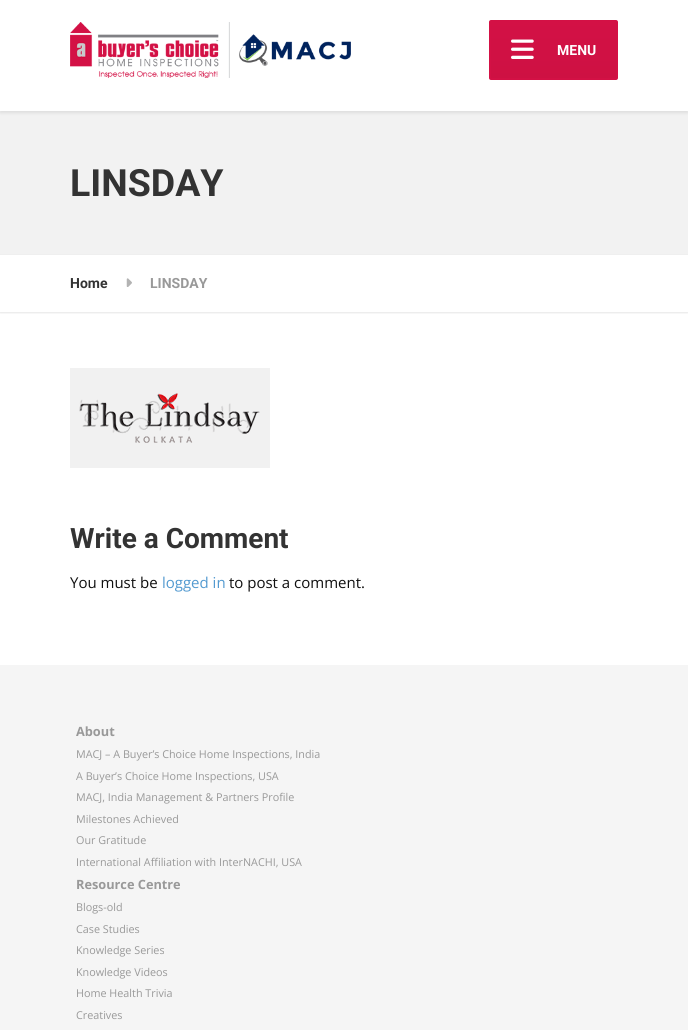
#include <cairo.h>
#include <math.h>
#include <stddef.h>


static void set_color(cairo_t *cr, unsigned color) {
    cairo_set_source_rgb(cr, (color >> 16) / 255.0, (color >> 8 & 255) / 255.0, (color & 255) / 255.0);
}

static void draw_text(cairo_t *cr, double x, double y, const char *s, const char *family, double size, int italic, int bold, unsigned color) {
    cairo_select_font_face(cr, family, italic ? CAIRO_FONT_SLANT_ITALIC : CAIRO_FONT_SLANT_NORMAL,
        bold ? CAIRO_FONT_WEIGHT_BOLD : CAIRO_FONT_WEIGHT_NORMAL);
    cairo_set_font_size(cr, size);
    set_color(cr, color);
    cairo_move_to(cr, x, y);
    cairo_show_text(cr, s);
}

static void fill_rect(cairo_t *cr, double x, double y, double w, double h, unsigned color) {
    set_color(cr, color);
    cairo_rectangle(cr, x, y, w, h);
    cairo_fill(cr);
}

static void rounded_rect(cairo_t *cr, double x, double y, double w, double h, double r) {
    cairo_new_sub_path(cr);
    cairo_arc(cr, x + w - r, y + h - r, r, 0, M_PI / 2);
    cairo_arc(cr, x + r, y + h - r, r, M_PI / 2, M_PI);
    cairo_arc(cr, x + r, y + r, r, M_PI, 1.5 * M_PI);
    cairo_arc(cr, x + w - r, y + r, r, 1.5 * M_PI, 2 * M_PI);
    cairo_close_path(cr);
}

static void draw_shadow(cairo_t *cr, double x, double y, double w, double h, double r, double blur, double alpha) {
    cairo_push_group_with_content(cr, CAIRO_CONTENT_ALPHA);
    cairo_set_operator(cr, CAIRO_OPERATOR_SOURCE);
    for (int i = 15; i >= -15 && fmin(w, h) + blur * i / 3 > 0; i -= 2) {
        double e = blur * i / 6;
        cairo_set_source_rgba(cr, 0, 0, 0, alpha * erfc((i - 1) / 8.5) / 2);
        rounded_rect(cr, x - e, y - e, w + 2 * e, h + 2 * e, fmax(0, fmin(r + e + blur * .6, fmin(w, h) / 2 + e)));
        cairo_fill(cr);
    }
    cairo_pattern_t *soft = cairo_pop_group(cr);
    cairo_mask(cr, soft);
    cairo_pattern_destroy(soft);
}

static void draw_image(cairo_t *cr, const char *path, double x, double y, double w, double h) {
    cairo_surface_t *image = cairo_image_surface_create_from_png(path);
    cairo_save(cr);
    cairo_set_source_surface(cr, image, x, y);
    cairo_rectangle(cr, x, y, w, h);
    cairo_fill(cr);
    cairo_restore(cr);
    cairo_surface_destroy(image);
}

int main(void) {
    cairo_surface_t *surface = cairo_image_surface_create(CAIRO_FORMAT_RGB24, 688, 1030);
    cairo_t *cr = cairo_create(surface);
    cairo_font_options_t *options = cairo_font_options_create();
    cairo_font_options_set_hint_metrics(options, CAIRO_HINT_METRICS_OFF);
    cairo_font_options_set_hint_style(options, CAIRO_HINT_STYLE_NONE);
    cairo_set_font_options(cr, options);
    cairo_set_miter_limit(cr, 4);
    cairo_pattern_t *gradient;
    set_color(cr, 0xFFFFFF);
    cairo_paint(cr);
    fill_rect(cr, 0, 111, 688, 143, 0xF2F2F2);
    cairo_save(cr);
    cairo_rectangle(cr, 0, 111, 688, 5);
    cairo_clip(cr);
    set_color(cr, 0xDEDEDE);
    draw_shadow(cr, 0, 0, 688, 113, 0, 1.5, 1);
    cairo_restore(cr);
    draw_image(cr, "assets/img1.png", 70, 22, 281, 56);
    gradient = cairo_pattern_create_linear(554, 22, 554, 78);
    cairo_pattern_add_color_stop_rgba(gradient, 0, 0.827, 0.067, 0.271, 1);
    cairo_pattern_add_color_stop_rgba(gradient, 1, 0.808, 0.067, 0.263, 1);
    cairo_set_source(cr, gradient);
    cairo_pattern_destroy(gradient);
    cairo_rectangle(cr, 491, 22, 125, 56);
    cairo_fill(cr);
    rounded_rect(cr, 490, 21, 127, 58, 1);
    set_color(cr, 0xD31145);
    cairo_stroke(cr);
    draw_image(cr, "assets/img2.png", 511, 39, 23, 20);
    draw_text(cr, 557, 55, "MENU", "Roboto", 14, 0, 1, 0xFFFFFF);
    fill_rect(cr, 0, 254, 688, 1, 0xEFEFEF);
    draw_text(cr, 70, 196, "LINSDAY", "Roboto", 37.5, 0, 1, 0x333333);
    cairo_save(cr);
    cairo_rectangle(cr, 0, 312, 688, 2);
    cairo_clip(cr);
    set_color(cr, 0x000000);
    draw_shadow(cr, 0, 256, 688, 57, 0, 1, 0.1);
    cairo_restore(cr);
    draw_text(cr, 70, 288, "Home", "Roboto", 14, 0, 1, 0x333333);
    draw_image(cr, "assets/img3.png", 126, 278, 6, 9);
    draw_text(cr, 150, 288, "LINSDAY", "Roboto", 14, 0, 1, 0x999999);
    draw_image(cr, "assets/img4.png", 70, 368, 200, 100);
    draw_text(cr, 70, 548, "Write a Comment", "Roboto", 28, 0, 1, 0x333333);
    draw_text(cr, 70, 588, "You must be", "Open Sans", 15, 0, 0, 0x101010);
    draw_text(cr, 162, 588, "logged in", "Open Sans", 15, 0, 0, 0x539AD0);
    draw_text(cr, 229, 588, "to post a comment.", "Open Sans", 15, 0, 0, 0x101010);
    fill_rect(cr, 0, 665, 688, 365, 0xF5F5F5);
    draw_text(cr, 76, 736, "About", "Open Sans", 12.75, 0, 1, 0x999999);
    draw_text(cr, 76, 758, "MACJ – A Buyer’s Choice Home Inspections, India", "Open Sans", 10.8, 0, 0, 0x999999);
    draw_text(cr, 76, 780, "A Buyer’s Choice Home Inspections, USA", "Open Sans", 10.8, 0, 0, 0x999999);
    draw_text(cr, 76, 801, "MACJ, India Management & Partners Profile", "Open Sans", 10.8, 0, 0, 0x999999);
    draw_text(cr, 76, 823, "Milestones Achieved", "Open Sans", 10.8, 0, 0, 0x999999);
    draw_text(cr, 76, 844, "Our Gratitude", "Open Sans", 10.8, 0, 0, 0x999999);
    draw_text(cr, 76, 866, "International Affiliation with InterNACHI, USA", "Open Sans", 10.8, 0, 0, 0x999999);
    draw_text(cr, 76, 889, "Resource Centre", "Open Sans", 12.75, 0, 1, 0x999999);
    draw_text(cr, 76, 911, "Blogs-old", "Open Sans", 10.8, 0, 0, 0x999999);
    draw_text(cr, 76, 933, "Case Studies", "Open Sans", 10.8, 0, 0, 0x999999);
    draw_text(cr, 76, 954, "Knowledge Series", "Open Sans", 10.8, 0, 0, 0x999999);
    draw_text(cr, 76, 976, "Knowledge Videos", "Open Sans", 10.8, 0, 0, 0x999999);
    draw_text(cr, 76, 997, "Home Health Trivia", "Open Sans", 10.8, 0, 0, 0x999999);
    draw_text(cr, 76, 1019, "Creatives", "Open Sans", 10.8, 0, 0, 0x999999);
    cairo_surface_write_to_png(surface, "output.png");
    cairo_font_options_destroy(options);
    cairo_destroy(cr);
    cairo_surface_destroy(surface);
    return 0;
}
